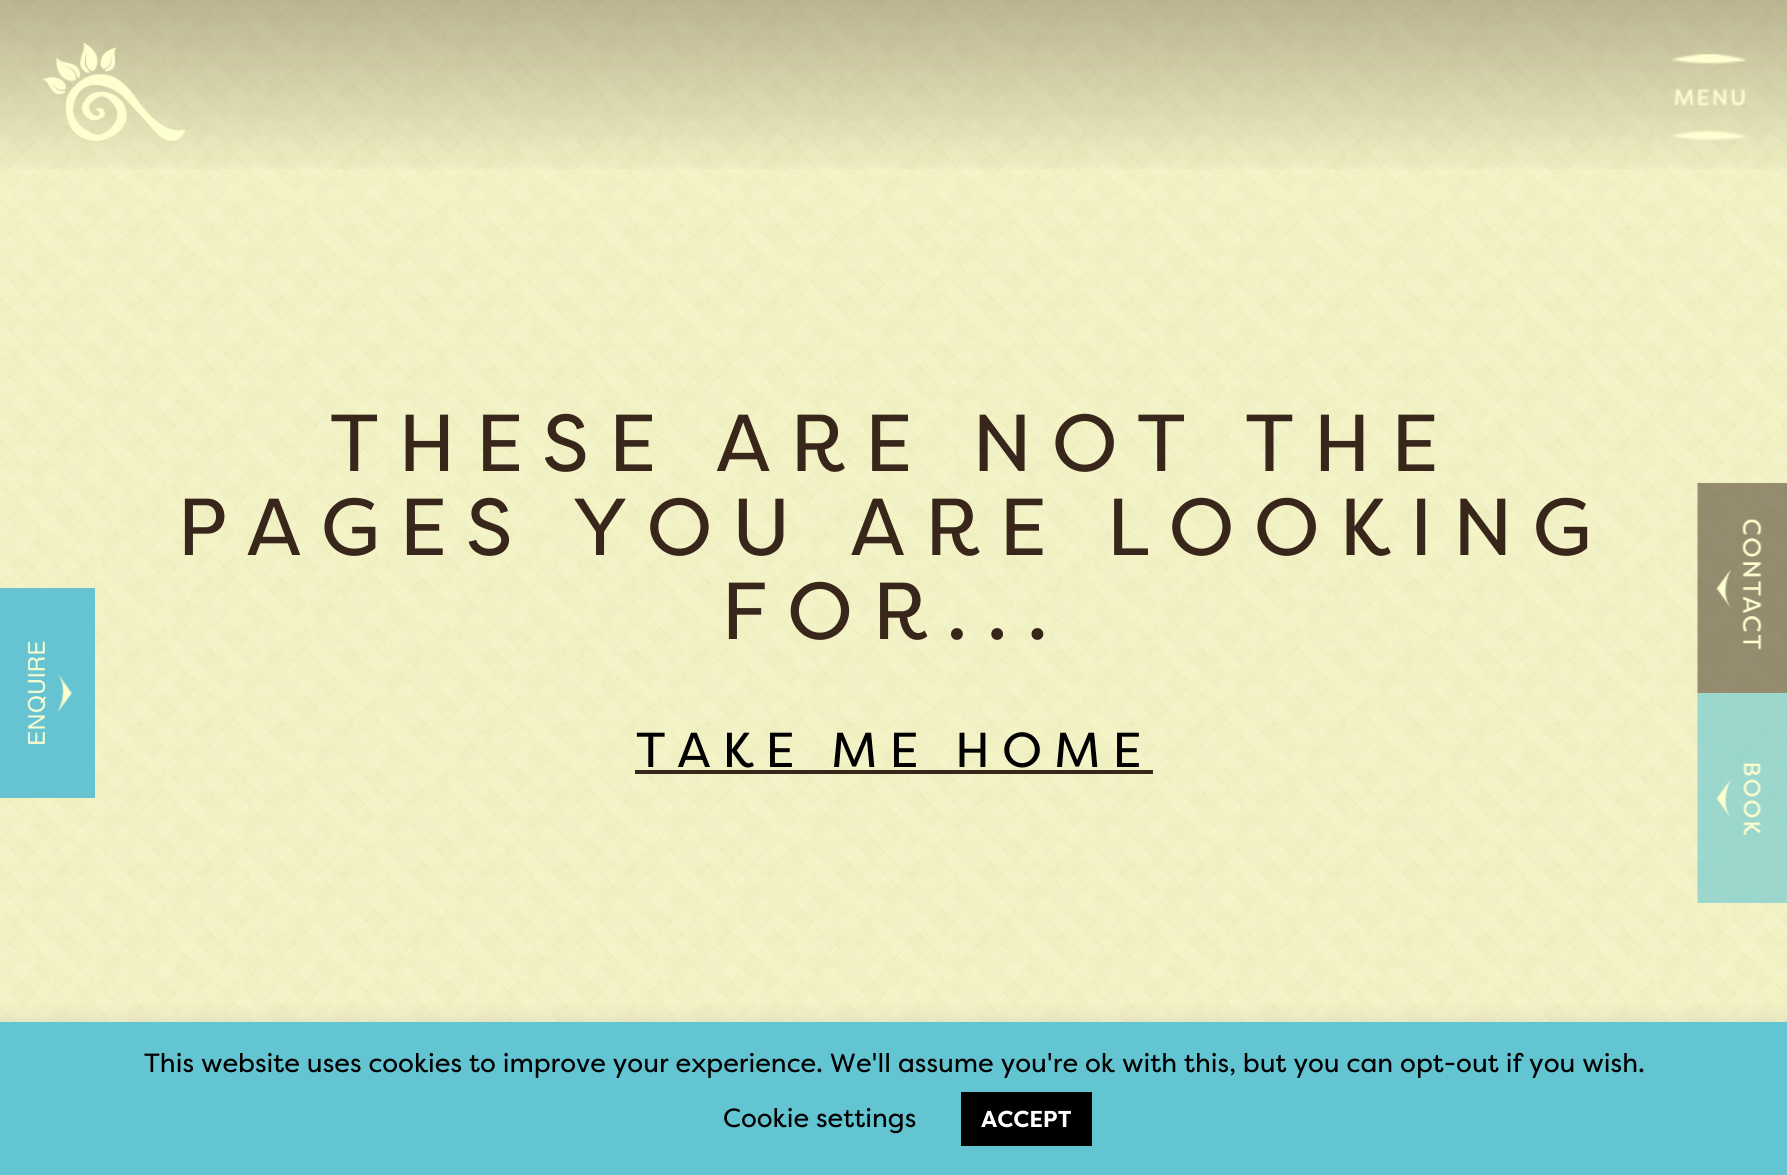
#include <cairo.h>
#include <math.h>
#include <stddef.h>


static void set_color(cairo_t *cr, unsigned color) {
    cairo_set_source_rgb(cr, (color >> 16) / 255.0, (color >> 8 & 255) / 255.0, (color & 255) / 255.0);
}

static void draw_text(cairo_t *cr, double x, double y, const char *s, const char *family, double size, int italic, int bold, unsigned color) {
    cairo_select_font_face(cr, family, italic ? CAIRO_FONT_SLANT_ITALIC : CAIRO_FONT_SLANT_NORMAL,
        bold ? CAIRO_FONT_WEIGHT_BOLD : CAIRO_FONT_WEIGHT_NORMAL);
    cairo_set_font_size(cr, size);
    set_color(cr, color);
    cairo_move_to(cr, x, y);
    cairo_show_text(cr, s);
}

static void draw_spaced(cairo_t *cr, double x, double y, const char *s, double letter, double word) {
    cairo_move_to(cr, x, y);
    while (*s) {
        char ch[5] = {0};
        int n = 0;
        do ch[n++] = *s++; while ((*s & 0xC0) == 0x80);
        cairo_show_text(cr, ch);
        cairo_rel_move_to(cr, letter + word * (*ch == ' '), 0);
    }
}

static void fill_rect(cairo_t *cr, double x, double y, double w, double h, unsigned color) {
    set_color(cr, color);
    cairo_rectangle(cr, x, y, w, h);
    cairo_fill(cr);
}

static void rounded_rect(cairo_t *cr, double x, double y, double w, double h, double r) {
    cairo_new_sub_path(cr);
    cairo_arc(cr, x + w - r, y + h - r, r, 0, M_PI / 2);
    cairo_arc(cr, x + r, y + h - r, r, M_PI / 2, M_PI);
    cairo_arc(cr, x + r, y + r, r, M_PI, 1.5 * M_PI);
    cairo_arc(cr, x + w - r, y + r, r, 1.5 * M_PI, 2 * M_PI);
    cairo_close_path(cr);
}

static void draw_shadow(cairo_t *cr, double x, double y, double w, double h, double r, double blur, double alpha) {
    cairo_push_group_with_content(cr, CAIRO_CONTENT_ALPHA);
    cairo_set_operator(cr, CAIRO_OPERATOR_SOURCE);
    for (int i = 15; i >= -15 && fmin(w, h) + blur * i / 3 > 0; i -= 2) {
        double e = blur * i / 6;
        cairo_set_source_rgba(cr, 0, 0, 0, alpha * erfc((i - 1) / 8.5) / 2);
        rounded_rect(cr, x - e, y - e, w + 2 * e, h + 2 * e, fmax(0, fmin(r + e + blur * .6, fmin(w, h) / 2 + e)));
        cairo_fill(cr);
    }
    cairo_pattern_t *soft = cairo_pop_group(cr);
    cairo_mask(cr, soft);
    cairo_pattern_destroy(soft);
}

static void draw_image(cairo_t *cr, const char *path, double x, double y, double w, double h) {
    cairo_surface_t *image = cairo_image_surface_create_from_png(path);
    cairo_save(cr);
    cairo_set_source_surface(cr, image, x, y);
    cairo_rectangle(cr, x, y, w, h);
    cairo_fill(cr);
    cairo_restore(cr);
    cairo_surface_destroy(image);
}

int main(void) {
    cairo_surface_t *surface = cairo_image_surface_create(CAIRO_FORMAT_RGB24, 1787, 1175);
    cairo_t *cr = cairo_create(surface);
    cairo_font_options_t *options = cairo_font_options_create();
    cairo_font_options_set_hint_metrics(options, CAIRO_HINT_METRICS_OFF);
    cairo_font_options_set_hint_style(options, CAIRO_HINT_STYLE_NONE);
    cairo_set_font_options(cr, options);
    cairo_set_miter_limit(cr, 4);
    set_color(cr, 0xFFFFFF);
    cairo_paint(cr);
    draw_image(cr, "assets/img7.png", 0, 0, 1787, 1022);
    draw_image(cr, "assets/img1.png", 0, 0, 1787, 169);
    draw_image(cr, "assets/img2.png", 43, 42, 143, 99);
    draw_image(cr, "assets/img3.png", 1671, 54, 76, 87);
    fill_rect(cr, 0, 588, 95, 210, 0x65C3D2);
    draw_image(cr, "assets/img4.png", 27, 641, 46, 103);
    draw_image(cr, "assets/img5.png", 1697, 483, 90, 210);
    draw_image(cr, "assets/img6.png", 1697, 693, 90, 210);
    cairo_select_font_face(cr, "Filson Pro", CAIRO_FONT_SLANT_NORMAL, CAIRO_FONT_WEIGHT_NORMAL);
    cairo_set_font_size(cr, 80.5);
    set_color(cr, 0x38261A);
    draw_spaced(cr, 330, 471, "THESE ARE NOT THE", 19.3, 0);
    draw_spaced(cr, 177, 555, "PAGES YOU ARE LOOKING", 19.3, 0);
    draw_spaced(cr, 721, 639, "FOR...", 19.3, 0);
    cairo_set_font_size(cr, 49);
    set_color(cr, 0x000000);
    draw_spaced(cr, 636, 767, "TAKE ME HOME", 11.75, 0);
    fill_rect(cr, 635, 770, 518, 4, 0x38261A);
    set_color(cr, 0xACABAB);
    draw_shadow(cr, 0, 1020, 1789, 154, 0, 9, 0.3);
    fill_rect(cr, 0, 1022, 1787, 153, 0x63C5D2);
    draw_text(cr, 144, 1072, "This website uses cookies to improve your experience. We'll assume you're ok with this, but you can opt-out if you wish.", "Filson Pro", 26.25, 0, 0, 0x000000);
    draw_text(cr, 723, 1127, "Cookie settings", "Filson Pro", 26.25, 0, 0, 0x000000);
    fill_rect(cr, 961, 1092, 131, 54, 0x000000);
    draw_text(cr, 981, 1127, "ACCEPT", "Filson Pro", 23, 0, 1, 0xFFFFFF);
    cairo_surface_write_to_png(surface, "output.png");
    cairo_font_options_destroy(options);
    cairo_destroy(cr);
    cairo_surface_destroy(surface);
    return 0;
}
